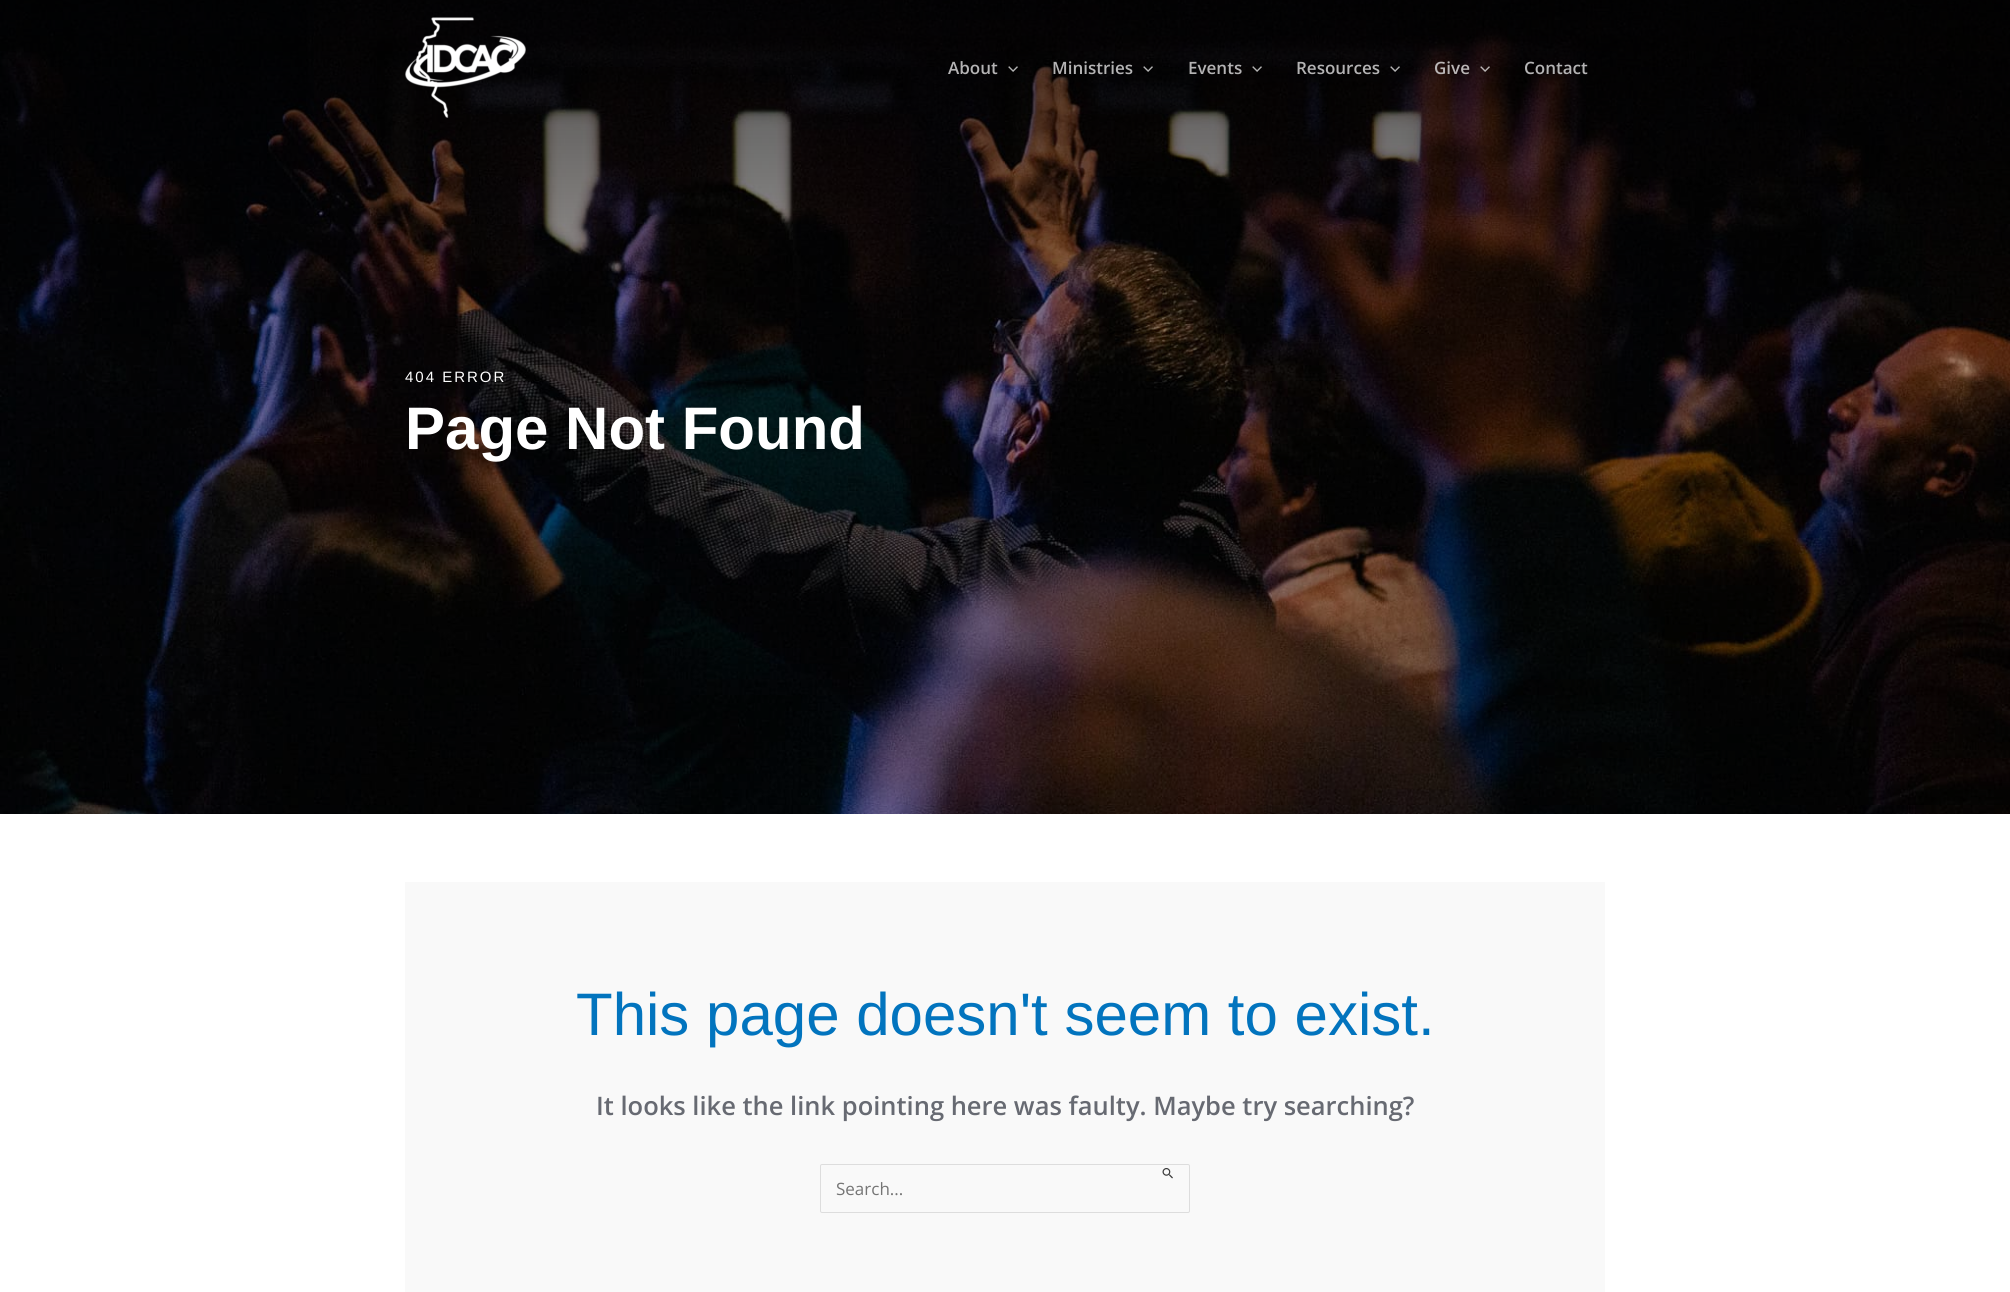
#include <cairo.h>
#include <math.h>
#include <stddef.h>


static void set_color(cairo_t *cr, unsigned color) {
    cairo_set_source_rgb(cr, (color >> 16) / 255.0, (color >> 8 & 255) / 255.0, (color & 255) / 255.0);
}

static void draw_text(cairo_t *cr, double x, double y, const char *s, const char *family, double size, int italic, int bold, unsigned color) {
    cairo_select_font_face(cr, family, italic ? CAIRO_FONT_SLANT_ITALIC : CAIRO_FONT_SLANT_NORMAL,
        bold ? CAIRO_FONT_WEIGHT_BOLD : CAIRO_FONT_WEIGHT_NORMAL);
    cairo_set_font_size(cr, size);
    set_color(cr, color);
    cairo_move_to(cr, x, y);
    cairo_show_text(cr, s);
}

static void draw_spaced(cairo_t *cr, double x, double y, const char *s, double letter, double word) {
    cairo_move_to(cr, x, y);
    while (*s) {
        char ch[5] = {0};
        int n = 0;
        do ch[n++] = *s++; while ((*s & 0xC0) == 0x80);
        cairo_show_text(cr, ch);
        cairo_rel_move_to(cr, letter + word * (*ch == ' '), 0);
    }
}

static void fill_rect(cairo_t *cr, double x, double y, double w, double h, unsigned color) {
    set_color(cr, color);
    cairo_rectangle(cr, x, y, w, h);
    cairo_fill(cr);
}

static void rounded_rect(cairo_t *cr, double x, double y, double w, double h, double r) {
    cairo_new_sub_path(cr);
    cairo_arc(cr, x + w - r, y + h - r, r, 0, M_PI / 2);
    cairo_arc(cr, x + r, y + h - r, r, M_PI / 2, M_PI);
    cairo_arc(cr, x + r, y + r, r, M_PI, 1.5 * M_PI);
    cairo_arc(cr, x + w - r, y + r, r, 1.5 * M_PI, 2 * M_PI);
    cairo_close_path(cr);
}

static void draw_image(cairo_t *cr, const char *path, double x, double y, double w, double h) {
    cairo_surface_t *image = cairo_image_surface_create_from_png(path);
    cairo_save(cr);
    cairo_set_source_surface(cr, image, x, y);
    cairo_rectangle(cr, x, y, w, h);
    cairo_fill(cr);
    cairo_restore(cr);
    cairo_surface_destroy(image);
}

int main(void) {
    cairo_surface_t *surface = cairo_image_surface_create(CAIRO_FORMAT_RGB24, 2010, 1292);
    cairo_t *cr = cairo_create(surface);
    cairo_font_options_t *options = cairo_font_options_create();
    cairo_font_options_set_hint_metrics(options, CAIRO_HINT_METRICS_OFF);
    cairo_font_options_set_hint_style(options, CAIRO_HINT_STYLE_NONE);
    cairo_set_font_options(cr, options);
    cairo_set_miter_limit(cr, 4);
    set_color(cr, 0xFFFFFF);
    cairo_paint(cr);
    draw_image(cr, "assets/img7.png", 0, 0, 2010, 814);
    draw_image(cr, "assets/img1.png", 405, 17, 121, 101);
    draw_text(cr, 948, 74, "About", "Open Sans SemiBold", 17, 0, 0, 0xB4B3B4);
    draw_image(cr, "assets/img2.png", 1008, 66, 10, 6);
    draw_text(cr, 1052, 74, "Ministries", "Open Sans SemiBold", 17, 0, 0, 0xB4B3B4);
    draw_image(cr, "assets/img3.png", 1143, 66, 10, 6);
    draw_text(cr, 1188, 74, "Events", "Open Sans SemiBold", 17, 0, 0, 0xB4B3B4);
    draw_image(cr, "assets/img4.png", 1252, 66, 10, 6);
    draw_text(cr, 1296, 74, "Resources", "Open Sans SemiBold", 17, 0, 0, 0xB4B3B4);
    draw_image(cr, "assets/img5.png", 1390, 66, 10, 6);
    draw_text(cr, 1434, 74, "Give", "Open Sans SemiBold", 17, 0, 0, 0xBAB6B6);
    draw_image(cr, "assets/img6.png", 1480, 66, 10, 6);
    draw_text(cr, 1524, 74, "Contact", "Open Sans SemiBold", 17, 0, 0, 0xB4B3B4);
    cairo_select_font_face(cr, "Liberation Sans", CAIRO_FONT_SLANT_NORMAL, CAIRO_FONT_WEIGHT_NORMAL);
    cairo_set_font_size(cr, 15);
    set_color(cr, 0xFFFFFF);
    draw_spaced(cr, 405, 382, "404 ERROR", 2, 0);
    draw_text(cr, 405, 449, "Page Not Found", "Liberation Sans", 60, 0, 1, 0xFFFFFF);
    fill_rect(cr, 405, 882, 1200, 410, 0xF9F9F9);
    draw_text(cr, 576, 1035, "This page doesn't seem to exist.", "Liberation Sans", 60, 0, 0, 0x0274BE);
    draw_text(cr, 596, 1115, "It looks like the link pointing here was faulty. Maybe try searching?", "Open Sans SemiBold", 25.5, 0, 0, 0x676A72);
    rounded_rect(cr, 820.5, 1164.5, 369, 48, 1.5);
    set_color(cr, 0xDDDDDD);
    cairo_set_line_width(cr, 1);
    cairo_stroke(cr);
    draw_image(cr, "assets/img8.png", 1162, 1168, 11, 11);
    draw_text(cr, 836, 1195, "Search...", "Open Sans", 17, 0, 0, 0x757575);
    cairo_surface_write_to_png(surface, "output.png");
    cairo_font_options_destroy(options);
    cairo_destroy(cr);
    cairo_surface_destroy(surface);
    return 0;
}
